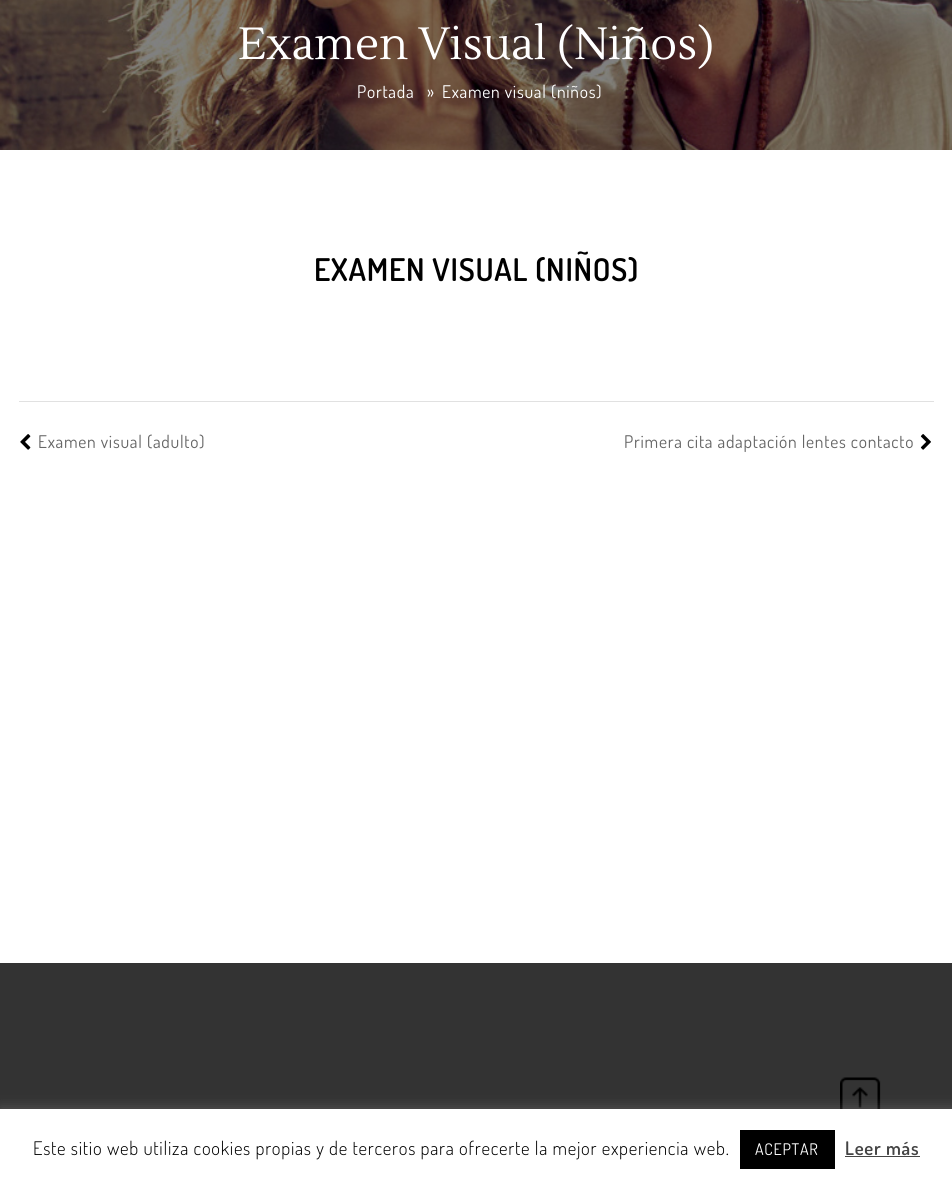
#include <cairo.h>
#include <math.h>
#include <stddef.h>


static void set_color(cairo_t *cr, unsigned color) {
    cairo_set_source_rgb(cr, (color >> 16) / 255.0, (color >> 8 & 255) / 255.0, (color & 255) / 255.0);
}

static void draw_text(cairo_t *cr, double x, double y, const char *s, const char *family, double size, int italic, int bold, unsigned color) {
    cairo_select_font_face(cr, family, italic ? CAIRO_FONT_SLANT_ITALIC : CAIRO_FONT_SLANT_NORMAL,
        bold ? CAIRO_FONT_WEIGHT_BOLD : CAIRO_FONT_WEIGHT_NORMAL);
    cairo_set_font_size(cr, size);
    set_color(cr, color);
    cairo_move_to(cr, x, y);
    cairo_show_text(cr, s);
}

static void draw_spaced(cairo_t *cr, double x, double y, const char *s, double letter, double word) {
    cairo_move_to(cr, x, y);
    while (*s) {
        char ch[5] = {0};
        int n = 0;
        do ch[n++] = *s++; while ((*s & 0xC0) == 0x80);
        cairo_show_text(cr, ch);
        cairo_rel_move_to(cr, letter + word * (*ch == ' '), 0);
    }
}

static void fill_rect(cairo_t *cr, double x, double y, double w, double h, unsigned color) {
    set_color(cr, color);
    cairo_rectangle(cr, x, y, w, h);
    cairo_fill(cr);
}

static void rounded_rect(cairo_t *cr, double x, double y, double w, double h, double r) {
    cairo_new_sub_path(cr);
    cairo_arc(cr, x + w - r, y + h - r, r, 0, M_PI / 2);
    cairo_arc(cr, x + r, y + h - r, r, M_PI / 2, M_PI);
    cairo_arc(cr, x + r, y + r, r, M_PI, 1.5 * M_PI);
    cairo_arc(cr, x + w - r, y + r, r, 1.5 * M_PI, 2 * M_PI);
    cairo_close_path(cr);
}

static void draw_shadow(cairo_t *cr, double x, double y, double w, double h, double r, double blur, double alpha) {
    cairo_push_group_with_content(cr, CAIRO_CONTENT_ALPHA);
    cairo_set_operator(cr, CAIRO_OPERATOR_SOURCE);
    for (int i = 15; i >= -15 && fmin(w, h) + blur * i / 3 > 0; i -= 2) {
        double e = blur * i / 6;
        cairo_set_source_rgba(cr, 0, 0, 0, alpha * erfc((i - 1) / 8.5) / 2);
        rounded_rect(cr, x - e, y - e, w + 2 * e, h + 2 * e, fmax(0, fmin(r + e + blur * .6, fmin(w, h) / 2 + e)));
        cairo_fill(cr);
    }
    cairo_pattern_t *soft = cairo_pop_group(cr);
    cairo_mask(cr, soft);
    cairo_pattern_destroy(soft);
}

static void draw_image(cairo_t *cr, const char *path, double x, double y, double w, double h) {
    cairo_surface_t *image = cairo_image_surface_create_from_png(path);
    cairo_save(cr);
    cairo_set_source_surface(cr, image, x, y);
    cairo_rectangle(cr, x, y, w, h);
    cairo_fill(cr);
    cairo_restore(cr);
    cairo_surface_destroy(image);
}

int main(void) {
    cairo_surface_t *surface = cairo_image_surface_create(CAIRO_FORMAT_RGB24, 952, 1190);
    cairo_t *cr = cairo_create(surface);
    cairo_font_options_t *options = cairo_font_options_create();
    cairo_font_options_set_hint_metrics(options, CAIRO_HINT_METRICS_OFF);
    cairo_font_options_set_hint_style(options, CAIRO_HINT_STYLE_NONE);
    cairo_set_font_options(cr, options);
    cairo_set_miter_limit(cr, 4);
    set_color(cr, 0xFFFFFF);
    cairo_paint(cr);
    draw_image(cr, "assets/img1.png", 0, 0, 952, 150);
    draw_text(cr, 238, 59, "Examen Visual (Niños)", "Lustria", 45, 0, 0, 0xFFFFFF);
    cairo_select_font_face(cr, "Dosis", CAIRO_FONT_SLANT_NORMAL, CAIRO_FONT_WEIGHT_NORMAL);
    cairo_set_font_size(cr, 17.5);
    draw_spaced(cr, 357, 98, "Portada", 0.75, 0);
    draw_spaced(cr, 427, 98, "»", 0.75, 0);
    draw_spaced(cr, 442, 98, "Examen visual (niños)", 0.75, 0);
    cairo_select_font_face(cr, "Dosis SemiBold", CAIRO_FONT_SLANT_NORMAL, CAIRO_FONT_WEIGHT_NORMAL);
    cairo_set_font_size(cr, 31.25);
    set_color(cr, 0x000000);
    draw_spaced(cr, 314, 281, "EXAMEN VISUAL (NIÑOS)", 0.75, 0);
    fill_rect(cr, 19, 401, 915, 1, 0xE1E1E1);
    draw_image(cr, "assets/img2.png", 20, 434, 11, 16);
    cairo_select_font_face(cr, "Dosis", CAIRO_FONT_SLANT_NORMAL, CAIRO_FONT_WEIGHT_NORMAL);
    cairo_set_font_size(cr, 17.5);
    set_color(cr, 0x666666);
    draw_spaced(cr, 38, 448, "Examen visual (adulto)", 0.75, 0);
    draw_spaced(cr, 624, 448, "Primera cita adaptación lentes contacto", 0.75, 0);
    draw_image(cr, "assets/img3.png", 920, 434, 11, 16);
    fill_rect(cr, 0, 963, 952, 146, 0x333333);
    draw_image(cr, "assets/img4.png", 840, 1077, 41, 32);
    set_color(cr, 0xACABAB);
    draw_shadow(cr, 0, 1108, 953, 81, 0, 6, 0.3);
    fill_rect(cr, 0, 1109, 952, 81, 0xFFFFFF);
    cairo_select_font_face(cr, "Dosis Light", CAIRO_FONT_SLANT_NORMAL, CAIRO_FONT_WEIGHT_NORMAL);
    cairo_set_font_size(cr, 18.75);
    set_color(cr, 0x000000);
    draw_spaced(cr, 33, 1155, "Este sitio web utiliza cookies propias y de terceros para ofrecerte la mejor experiencia web.", 0.75, 0);
    fill_rect(cr, 740, 1130, 95, 39, 0x000000);
    cairo_select_font_face(cr, "Dosis", CAIRO_FONT_SLANT_NORMAL, CAIRO_FONT_WEIGHT_NORMAL);
    cairo_set_font_size(cr, 16);
    set_color(cr, 0xFFFFFF);
    draw_spaced(cr, 755, 1155, "ACEPTAR", 0.75, 0);
    cairo_select_font_face(cr, "Dosis SemiBold", CAIRO_FONT_SLANT_NORMAL, CAIRO_FONT_WEIGHT_NORMAL);
    cairo_set_font_size(cr, 18.75);
    set_color(cr, 0x444444);
    draw_spaced(cr, 845, 1155, "Leer más", 0.75, 0);
    fill_rect(cr, 845, 1156, 75, 1, 0x444444);
    cairo_surface_write_to_png(surface, "output.png");
    cairo_font_options_destroy(options);
    cairo_destroy(cr);
    cairo_surface_destroy(surface);
    return 0;
}
